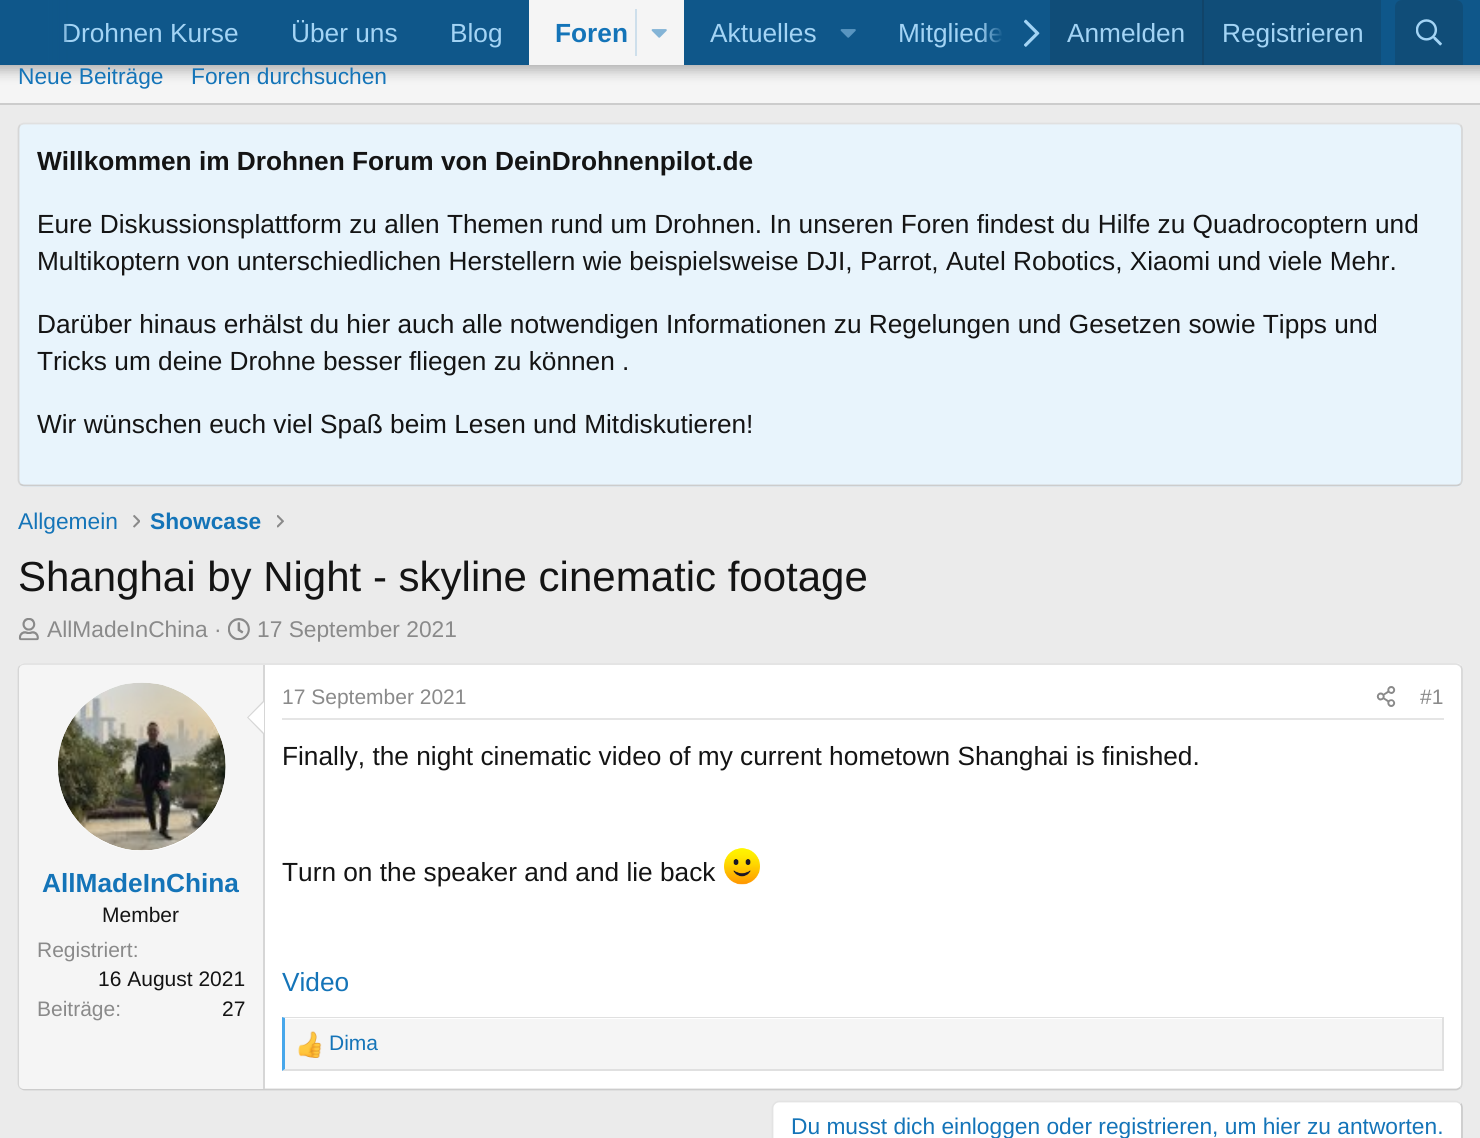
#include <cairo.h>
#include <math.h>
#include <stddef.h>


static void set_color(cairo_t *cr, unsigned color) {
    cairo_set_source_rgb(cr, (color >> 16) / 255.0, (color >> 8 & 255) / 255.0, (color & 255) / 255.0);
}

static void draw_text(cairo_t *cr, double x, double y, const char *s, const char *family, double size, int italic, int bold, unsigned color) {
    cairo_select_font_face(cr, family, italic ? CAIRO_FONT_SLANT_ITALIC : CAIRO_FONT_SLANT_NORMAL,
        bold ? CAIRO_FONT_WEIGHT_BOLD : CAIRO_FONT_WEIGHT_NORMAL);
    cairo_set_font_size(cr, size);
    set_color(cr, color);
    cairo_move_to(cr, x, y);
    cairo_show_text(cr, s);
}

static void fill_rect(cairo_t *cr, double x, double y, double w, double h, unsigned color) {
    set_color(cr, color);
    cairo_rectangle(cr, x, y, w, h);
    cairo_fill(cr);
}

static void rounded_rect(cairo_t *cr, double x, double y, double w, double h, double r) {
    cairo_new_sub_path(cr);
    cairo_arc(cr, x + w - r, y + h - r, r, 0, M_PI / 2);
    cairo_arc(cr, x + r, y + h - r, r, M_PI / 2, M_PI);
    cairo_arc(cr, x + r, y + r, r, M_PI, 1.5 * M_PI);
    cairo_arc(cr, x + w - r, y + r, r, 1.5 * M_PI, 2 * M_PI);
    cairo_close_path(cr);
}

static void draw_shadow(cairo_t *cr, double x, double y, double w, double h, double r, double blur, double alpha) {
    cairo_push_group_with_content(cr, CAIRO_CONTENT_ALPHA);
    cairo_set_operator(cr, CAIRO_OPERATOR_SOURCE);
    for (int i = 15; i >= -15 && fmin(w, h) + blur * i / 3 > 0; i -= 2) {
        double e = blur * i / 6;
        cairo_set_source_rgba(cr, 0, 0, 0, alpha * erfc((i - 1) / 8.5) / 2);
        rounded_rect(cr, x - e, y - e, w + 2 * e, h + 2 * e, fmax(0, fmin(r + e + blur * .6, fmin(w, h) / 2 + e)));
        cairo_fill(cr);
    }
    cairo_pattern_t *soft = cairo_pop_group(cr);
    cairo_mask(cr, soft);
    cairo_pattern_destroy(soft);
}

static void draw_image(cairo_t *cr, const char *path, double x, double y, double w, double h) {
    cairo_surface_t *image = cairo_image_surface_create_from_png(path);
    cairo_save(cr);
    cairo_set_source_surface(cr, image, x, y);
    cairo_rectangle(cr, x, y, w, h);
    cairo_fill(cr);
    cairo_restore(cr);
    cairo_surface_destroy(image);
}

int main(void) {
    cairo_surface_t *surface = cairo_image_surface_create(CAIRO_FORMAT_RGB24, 1480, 1138);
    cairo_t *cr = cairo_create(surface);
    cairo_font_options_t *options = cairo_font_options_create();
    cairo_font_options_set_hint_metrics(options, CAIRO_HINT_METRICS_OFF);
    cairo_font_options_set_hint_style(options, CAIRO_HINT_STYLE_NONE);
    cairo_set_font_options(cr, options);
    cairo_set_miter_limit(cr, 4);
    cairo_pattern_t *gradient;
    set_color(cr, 0xEBEBEB);
    cairo_paint(cr);
    fill_rect(cr, 0, 65, 1480, 38, 0xF5F5F5);
    set_color(cr, 0x000000);
    draw_shadow(cr, -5, -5, 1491, 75, 0, 7, 0.3);
    fill_rect(cr, 46, 0, 1434, 65, 0x0F578A);
    draw_text(cr, 62, 42, "Drohnen Kurse", "Liberation Sans", 26.25, 0, 0, 0xA3D4F5);
    gradient = cairo_pattern_create_linear(0, 32, 70, 32);
    cairo_pattern_add_color_stop_rgba(gradient, 0.66, 0.059, 0.341, 0.541, 1);
    cairo_pattern_add_color_stop_rgba(gradient, 1, 0.059, 0.341, 0.541, 0);
    cairo_set_source(cr, gradient);
    cairo_pattern_destroy(gradient);
    cairo_rectangle(cr, 0, 0, 69, 65);
    cairo_fill(cr);
    draw_text(cr, 291, 42, "Über uns", "Liberation Sans", 26.25, 0, 0, 0xA3D4F5);
    draw_text(cr, 450, 42, "Blog", "Liberation Sans", 26.25, 0, 0, 0xA3D4F5);
    fill_rect(cr, 529, 0, 155, 65, 0xF5F5F5);
    draw_text(cr, 555, 42, "Foren", "Liberation Sans", 26.25, 0, 1, 0x1474B8);
    fill_rect(cr, 635, 9, 2, 47, 0xCEDFEB);
    draw_image(cr, "assets/img1.png", 651, 29, 16, 9);
    draw_text(cr, 710, 42, "Aktuelles", "Liberation Sans", 26.25, 0, 0, 0xA3D4F5);
    draw_image(cr, "assets/img2.png", 840, 29, 16, 9);
    draw_text(cr, 898, 42, "Mitgliede", "Liberation Sans", 26.25, 0, 0, 0xA3D4F5);
    gradient = cairo_pattern_create_linear(980, 32, 1050, 32);
    cairo_pattern_add_color_stop_rgba(gradient, 0, 0.059, 0.341, 0.541, 0);
    cairo_pattern_add_color_stop_rgba(gradient, 0.33, 0.059, 0.341, 0.541, 1);
    cairo_set_source(cr, gradient);
    cairo_pattern_destroy(gradient);
    cairo_rectangle(cr, 980, 23, 23, 20);
    cairo_fill(cr);
    draw_image(cr, "assets/img3.png", 1024, 19, 16, 28);
    fill_rect(cr, 1050, 0, 331, 65, 0x104D78);
    draw_text(cr, 1067, 42, "Anmelden", "Liberation Sans", 26.25, 0, 0, 0xA3D4F5);
    fill_rect(cr, 1202, 0, 2, 65, 0x114469);
    draw_text(cr, 1222, 42, "Registrieren", "Liberation Sans", 26.25, 0, 0, 0xA3D4F5);
    set_color(cr, 0x104D78);
    cairo_new_path(cr);
    cairo_move_to(cr, 1402, 0);
    cairo_line_to(cr, 1456, 0);
    cairo_curve_to(cr, 1460, 0, 1463, 3, 1463, 7);
    cairo_line_to(cr, 1463, 65);
    cairo_line_to(cr, 1395, 65);
    cairo_line_to(cr, 1395, 7);
    cairo_curve_to(cr, 1395, 3, 1398, 0, 1402, 0);
    cairo_close_path(cr);
    cairo_fill(cr);
    draw_image(cr, "assets/img4.png", 1416, 19, 26, 27);
    fill_rect(cr, 0, 103, 1480, 2, 0xCCCCCC);
    draw_text(cr, 18, 84, "Neue Beiträge", "Liberation Sans", 22.75, 0, 0, 0x1474B8);
    draw_text(cr, 191, 84, "Foren durchsuchen", "Liberation Sans", 22.75, 0, 0, 0x1474B8);
    set_color(cr, 0xE8F4FC);
    rounded_rect(cr, 18, 123, 1445, 364, 7);
    cairo_fill(cr);
    cairo_new_path(cr);
    cairo_move_to(cr, 20, 125);
    cairo_curve_to(cr, 21.5, 124, 23, 123.5, 24.5, 123.5);
    cairo_line_to(cr, 1456, 123.5);
    cairo_curve_to(cr, 1457.5, 123.5, 1459, 124, 1460.5, 125);
    set_color(cr, 0xE0E0E0);
    cairo_set_line_width(cr, 1.8);
    cairo_stroke(cr);
    cairo_new_path(cr);
    cairo_move_to(cr, 1460.5, 125);
    cairo_curve_to(cr, 1461.5, 126.5, 1462, 128, 1462, 129.5);
    cairo_line_to(cr, 1462, 479.5);
    cairo_curve_to(cr, 1462, 481, 1461.5, 482.5, 1460.5, 484);
    set_color(cr, 0xD6D6D6);
    cairo_stroke(cr);
    cairo_new_path(cr);
    cairo_move_to(cr, 1460.5, 484);
    cairo_curve_to(cr, 1459, 485, 1457.5, 485.5, 1456, 485.5);
    cairo_line_to(cr, 24.5, 485.5);
    cairo_curve_to(cr, 23, 485.5, 21.5, 485, 20, 484);
    set_color(cr, 0xCCCCCC);
    cairo_stroke(cr);
    cairo_new_path(cr);
    cairo_move_to(cr, 20, 484);
    cairo_curve_to(cr, 19, 482.5, 18.5, 481, 18.5, 479.5);
    cairo_line_to(cr, 18.5, 129.5);
    cairo_curve_to(cr, 18.5, 128, 19, 126.5, 20, 125);
    set_color(cr, 0xD6D6D6);
    cairo_stroke(cr);
    draw_text(cr, 37, 170, "Willkommen im Drohnen Forum von DeinDrohnenpilot.de", "Liberation Sans", 26.25, 0, 1, 0x141414);
    draw_text(cr, 37, 233, "Eure Diskussionsplattform zu allen Themen rund um Drohnen. In unseren Foren findest du Hilfe zu Quadrocoptern und", "Liberation Sans", 26.25, 0, 0, 0x141414);
    draw_text(cr, 37, 270, "Multikoptern von unterschiedlichen Herstellern wie beispielsweise DJI, Parrot, Autel Robotics, Xiaomi und viele Mehr.", "Liberation Sans", 26.25, 0, 0, 0x141414);
    draw_text(cr, 37, 333, "Darüber hinaus erhälst du hier auch alle notwendigen Informationen zu Regelungen und Gesetzen sowie Tipps und", "Liberation Sans", 26.25, 0, 0, 0x141414);
    draw_text(cr, 37, 370, "Tricks um deine Drohne besser fliegen zu können .", "Liberation Sans", 26.25, 0, 0, 0x141414);
    draw_text(cr, 37, 433, "Wir wünschen euch viel Spaß beim Lesen und Mitdiskutieren!", "Liberation Sans", 26.25, 0, 0, 0x141414);
    draw_text(cr, 18, 529, "Allgemein", "Liberation Sans", 22.75, 0, 0, 0x1474B8);
    draw_image(cr, "assets/img5.png", 133, 514, 7, 14);
    draw_text(cr, 150, 529, "Showcase", "Liberation Sans", 22.75, 0, 1, 0x1474B8);
    draw_image(cr, "assets/img6.png", 277, 515, 7, 13);
    draw_text(cr, 18, 591, "Shanghai by Night - skyline cinematic footage", "Liberation Sans", 42, 0, 0, 0x141414);
    draw_image(cr, "assets/img7.png", 18, 618, 21, 23);
    draw_text(cr, 47, 637, "AllMadeInChina ·", "Liberation Sans", 22.75, 0, 0, 0x8A8A8A);
    draw_image(cr, "assets/img8.png", 228, 618, 22, 23);
    draw_text(cr, 257, 637, "17 September 2021", "Liberation Sans", 22.75, 0, 0, 0x8A8A8A);
    set_color(cr, 0xFFFFFF);
    rounded_rect(cr, 18, 663, 1445, 427, 7);
    cairo_fill(cr);
    cairo_new_path(cr);
    cairo_move_to(cr, 20, 666);
    cairo_curve_to(cr, 21.5, 665, 23, 664, 24.5, 664);
    cairo_line_to(cr, 1456, 664);
    cairo_curve_to(cr, 1457.5, 664, 1459, 665, 1460.5, 666);
    set_color(cr, 0xE0E0E0);
    cairo_stroke(cr);
    cairo_new_path(cr);
    cairo_move_to(cr, 1460.5, 666);
    cairo_curve_to(cr, 1461.5, 667, 1462, 668.5, 1462, 670);
    cairo_line_to(cr, 1462, 1083);
    cairo_curve_to(cr, 1462, 1085, 1461.5, 1086.5, 1460.5, 1087.5);
    set_color(cr, 0xD6D6D6);
    cairo_stroke(cr);
    cairo_new_path(cr);
    cairo_move_to(cr, 1460.5, 1087.5);
    cairo_curve_to(cr, 1459, 1088.5, 1457.5, 1089.5, 1456, 1089.5);
    cairo_line_to(cr, 24.5, 1089.5);
    cairo_curve_to(cr, 23, 1089.5, 21.5, 1088.5, 20, 1087.5);
    set_color(cr, 0xCCCCCC);
    cairo_stroke(cr);
    cairo_new_path(cr);
    cairo_move_to(cr, 20, 1087.5);
    cairo_curve_to(cr, 19, 1086.5, 18.5, 1085, 18.5, 1083);
    cairo_line_to(cr, 18.5, 670);
    cairo_curve_to(cr, 18.5, 668.5, 19, 667, 20, 666);
    set_color(cr, 0xD6D6D6);
    cairo_stroke(cr);
    set_color(cr, 0xF5F5F5);
    cairo_new_path(cr);
    cairo_move_to(cr, 24, 665);
    cairo_line_to(cr, 264, 665);
    cairo_line_to(cr, 264, 1089);
    cairo_line_to(cr, 24, 1089);
    cairo_curve_to(cr, 21, 1089, 19, 1087, 19, 1084);
    cairo_line_to(cr, 19, 670);
    cairo_curve_to(cr, 19, 667, 21, 665, 24, 665);
    cairo_close_path(cr);
    cairo_fill(cr);
    fill_rect(cr, 263, 665, 2, 424, 0xD6D6D6);
    set_color(cr, 0xFFFFFF);
    cairo_arc(cr, 142, 767, 84, 0, 2 * M_PI);
    cairo_fill(cr);
    draw_image(cr, "assets/img9.png", 58, 682, 168, 169);
    set_color(cr, 0xD6D6D6);
    cairo_new_path(cr);
    cairo_move_to(cr, 264, 700);
    cairo_line_to(cr, 264, 735);
    cairo_line_to(cr, 247, 717.5);
    cairo_close_path(cr);
    cairo_fill(cr);
    set_color(cr, 0xFFFFFF);
    cairo_new_path(cr);
    cairo_move_to(cr, 264, 702);
    cairo_line_to(cr, 264, 733);
    cairo_line_to(cr, 248.5, 717.5);
    cairo_close_path(cr);
    cairo_fill(cr);
    draw_text(cr, 42, 892, "AllMadeInChina", "Liberation Sans", 26.25, 0, 1, 0x1474B8);
    draw_text(cr, 102, 922, "Member", "Liberation Sans", 21, 0, 0, 0x141414);
    draw_text(cr, 37, 957, "Registriert:", "Liberation Sans", 21, 0, 0, 0x8A8A8A);
    draw_text(cr, 98, 986, "16 August 2021", "Liberation Sans", 21, 0, 0, 0x141414);
    draw_text(cr, 37, 1016, "Beiträge:", "Liberation Sans", 21, 0, 0, 0x8A8A8A);
    draw_text(cr, 222, 1016, "27", "Liberation Sans", 21, 0, 0, 0x141414);
    fill_rect(cr, 282, 718, 1162, 2, 0xE5E5E5);
    draw_text(cr, 282, 704, "17 September 2021", "Liberation Sans", 21, 0, 0, 0x8A8A8A);
    draw_image(cr, "assets/img10.png", 1376, 686, 20, 21);
    draw_text(cr, 1420, 704, "#1", "Liberation Sans", 21, 0, 0, 0x8A8A8A);
    draw_text(cr, 282, 765, "Finally, the night cinematic video of my current hometown Shanghai is finished.", "Liberation Sans", 26.25, 0, 0, 0x141414);
    draw_text(cr, 282, 881, "Turn on the speaker and and lie back", "Liberation Sans", 26.25, 0, 0, 0x141414);
    draw_image(cr, "assets/img11.png", 724, 848, 36, 37);
    draw_text(cr, 282, 991, "Video", "Liberation Sans", 26.25, 0, 0, 0x1474B8);
    fill_rect(cr, 285, 1019, 1157, 50, 0xF5F5F5);
    set_color(cr, 0xE0E0E0);
    cairo_new_path(cr);
    cairo_move_to(cr, 282, 1017);
    cairo_line_to(cr, 1444, 1017);
    cairo_line_to(cr, 1442, 1018);
    cairo_line_to(cr, 285, 1018);
    cairo_close_path(cr);
    cairo_fill(cr);
    fill_rect(cr, 1442, 1017, 2, 54, 0xE0E0E0);
    cairo_new_path(cr);
    cairo_move_to(cr, 1444, 1071);
    cairo_line_to(cr, 282, 1071);
    cairo_line_to(cr, 285, 1069);
    cairo_line_to(cr, 1442, 1069);
    cairo_close_path(cr);
    cairo_fill(cr);
    set_color(cr, 0x47A7EB);
    cairo_new_path(cr);
    cairo_move_to(cr, 282, 1071);
    cairo_line_to(cr, 282, 1017);
    cairo_line_to(cr, 285, 1018);
    cairo_line_to(cr, 285, 1069);
    cairo_close_path(cr);
    cairo_fill(cr);
    draw_image(cr, "assets/img12.png", 298, 1031, 24, 27);
    draw_text(cr, 329, 1050, "Dima", "Liberation Sans", 21, 0, 0, 0x1474B8);
    set_color(cr, 0xFFFFFF);
    rounded_rect(cr, 772, 1101, 691, 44, 7);
    cairo_fill(cr);
    cairo_new_path(cr);
    cairo_move_to(cr, 1460.5, 1103.5);
    cairo_curve_to(cr, 1461.5, 1104.5, 1462, 1106, 1462, 1108);
    cairo_line_to(cr, 1462, 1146);
    cairo_curve_to(cr, 1462, 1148, 1461.5, 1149.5, 1460.5, 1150.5);
    cairo_curve_to(cr, 1459, 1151.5, 1457.5, 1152.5, 1456, 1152.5);
    cairo_line_to(cr, 779, 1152.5);
    cairo_curve_to(cr, 777, 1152.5, 775.5, 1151.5, 774.5, 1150.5);
    set_color(cr, 0xC9C9C9);
    cairo_stroke(cr);
    cairo_new_path(cr);
    cairo_move_to(cr, 774.5, 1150.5);
    cairo_curve_to(cr, 773.5, 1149.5, 772.5, 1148, 772.5, 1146);
    cairo_line_to(cr, 772.5, 1108);
    cairo_curve_to(cr, 772.5, 1106, 773.5, 1104.5, 774.5, 1103.5);
    cairo_curve_to(cr, 775.5, 1102.5, 777, 1101.5, 779, 1101.5);
    cairo_line_to(cr, 1456, 1101.5);
    cairo_curve_to(cr, 1457.5, 1101.5, 1459, 1102.5, 1460.5, 1103.5);
    set_color(cr, 0xE3E3E3);
    cairo_stroke(cr);
    draw_text(cr, 791, 1134, "Du musst dich einloggen oder registrieren, um hier zu antworten.", "Liberation Sans", 22.75, 0, 0, 0x1474B8);
    cairo_surface_write_to_png(surface, "output.png");
    cairo_font_options_destroy(options);
    cairo_destroy(cr);
    cairo_surface_destroy(surface);
    return 0;
}
